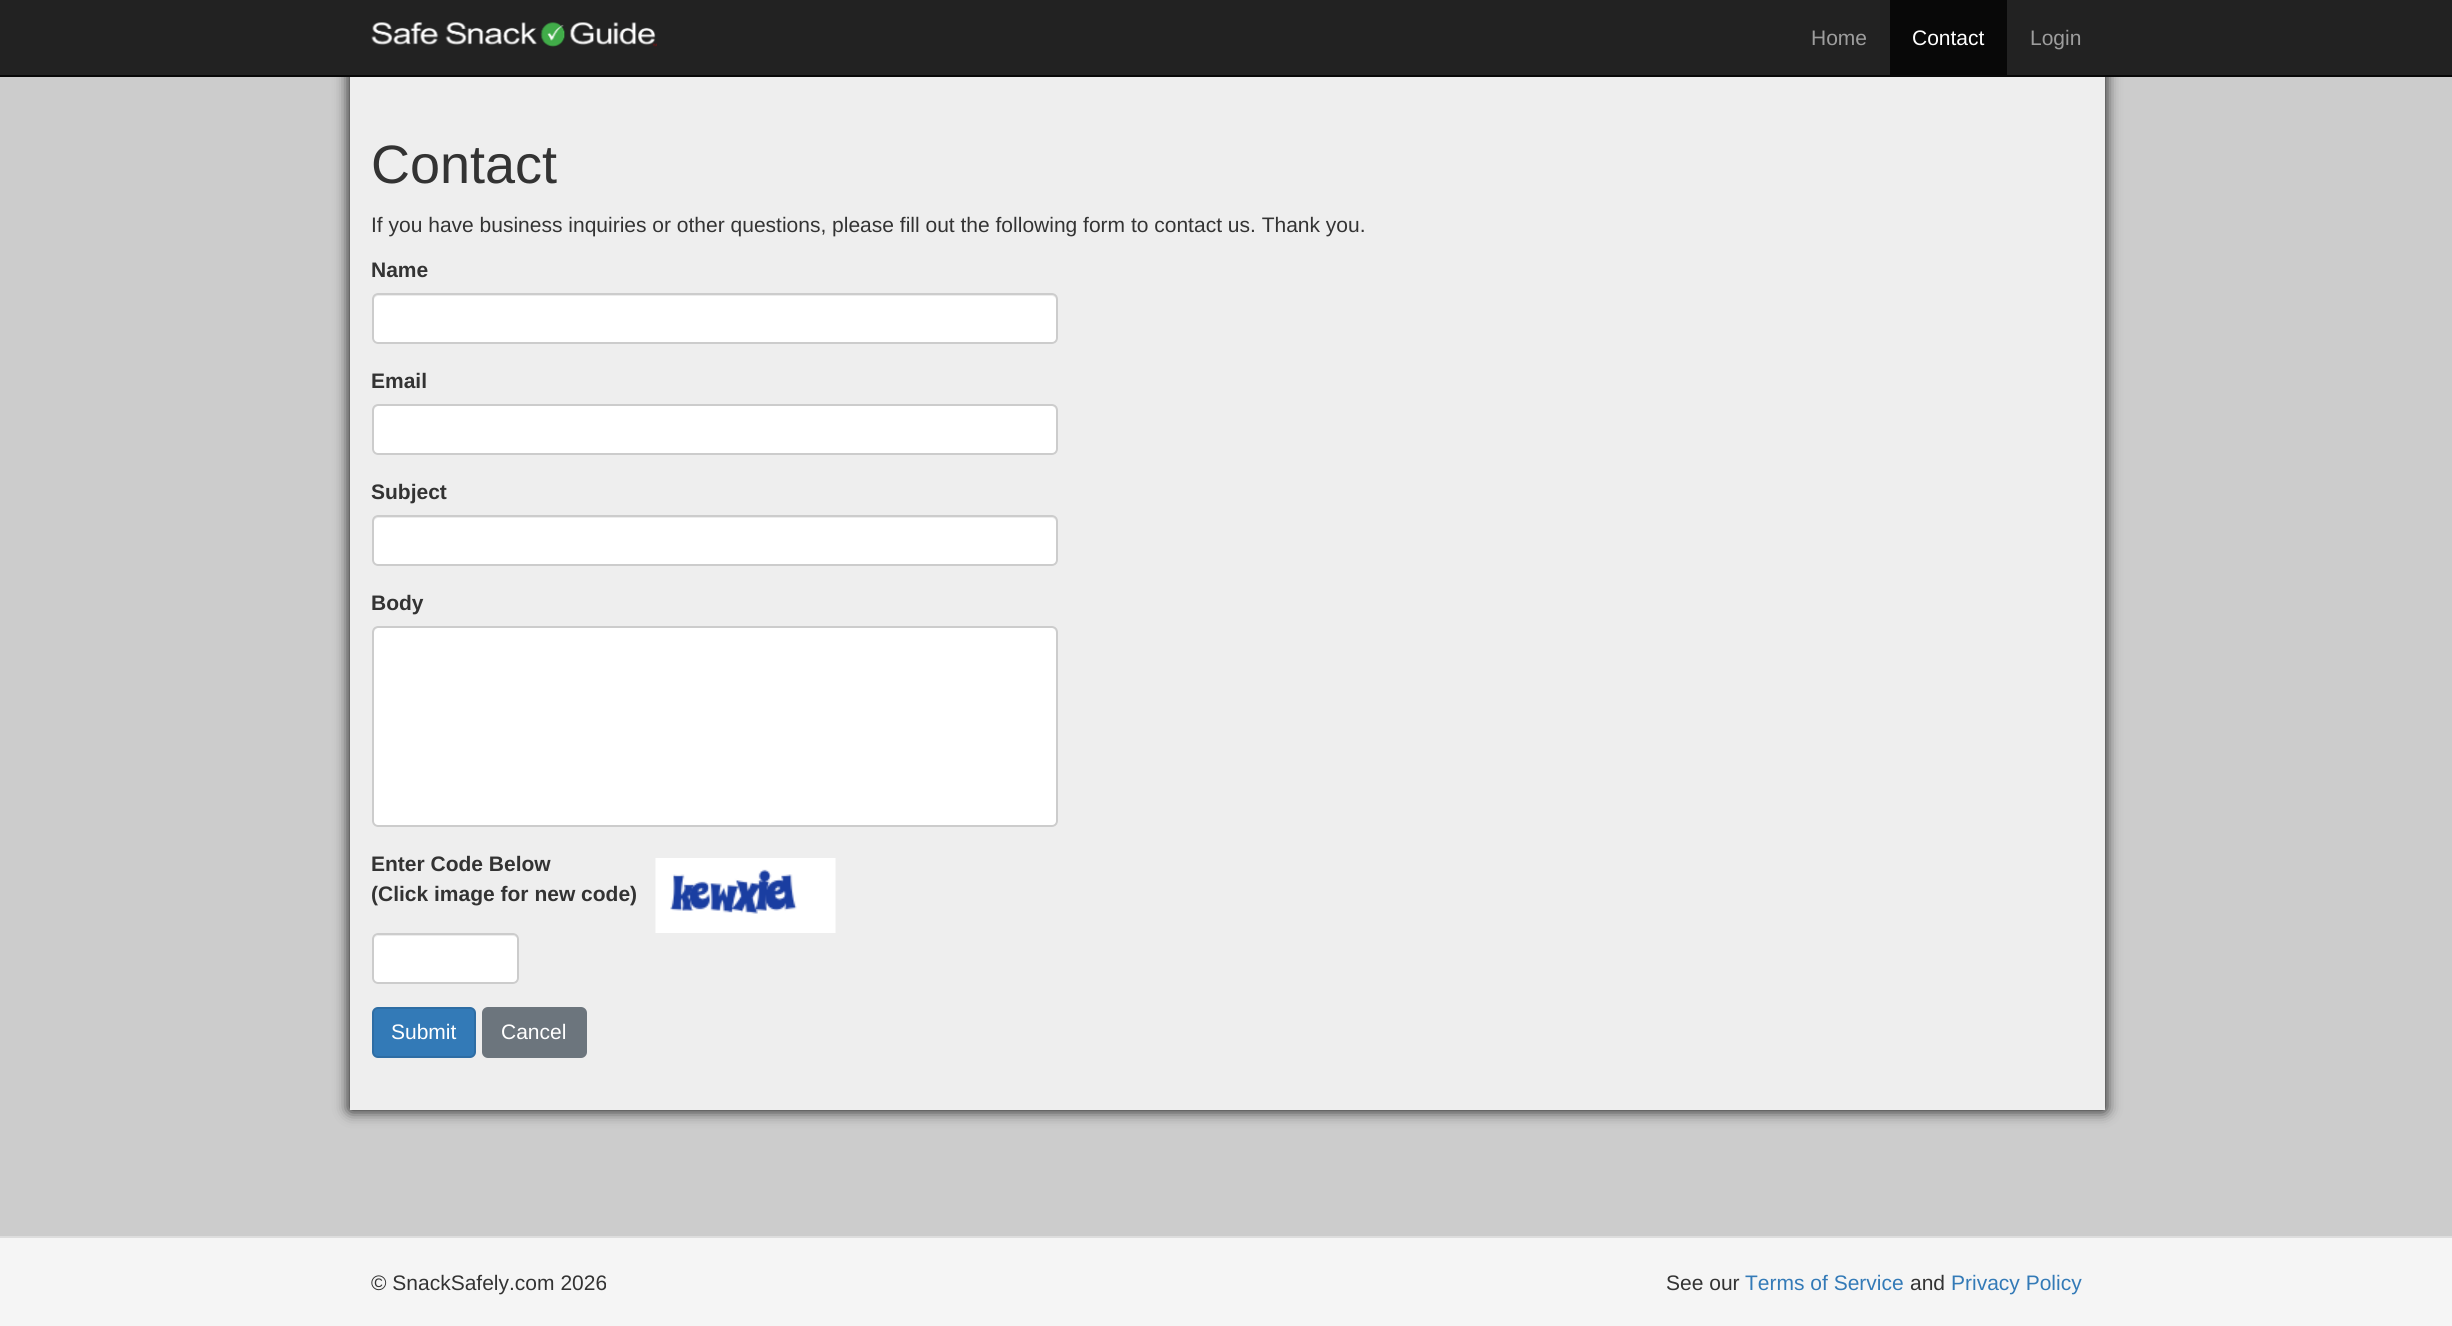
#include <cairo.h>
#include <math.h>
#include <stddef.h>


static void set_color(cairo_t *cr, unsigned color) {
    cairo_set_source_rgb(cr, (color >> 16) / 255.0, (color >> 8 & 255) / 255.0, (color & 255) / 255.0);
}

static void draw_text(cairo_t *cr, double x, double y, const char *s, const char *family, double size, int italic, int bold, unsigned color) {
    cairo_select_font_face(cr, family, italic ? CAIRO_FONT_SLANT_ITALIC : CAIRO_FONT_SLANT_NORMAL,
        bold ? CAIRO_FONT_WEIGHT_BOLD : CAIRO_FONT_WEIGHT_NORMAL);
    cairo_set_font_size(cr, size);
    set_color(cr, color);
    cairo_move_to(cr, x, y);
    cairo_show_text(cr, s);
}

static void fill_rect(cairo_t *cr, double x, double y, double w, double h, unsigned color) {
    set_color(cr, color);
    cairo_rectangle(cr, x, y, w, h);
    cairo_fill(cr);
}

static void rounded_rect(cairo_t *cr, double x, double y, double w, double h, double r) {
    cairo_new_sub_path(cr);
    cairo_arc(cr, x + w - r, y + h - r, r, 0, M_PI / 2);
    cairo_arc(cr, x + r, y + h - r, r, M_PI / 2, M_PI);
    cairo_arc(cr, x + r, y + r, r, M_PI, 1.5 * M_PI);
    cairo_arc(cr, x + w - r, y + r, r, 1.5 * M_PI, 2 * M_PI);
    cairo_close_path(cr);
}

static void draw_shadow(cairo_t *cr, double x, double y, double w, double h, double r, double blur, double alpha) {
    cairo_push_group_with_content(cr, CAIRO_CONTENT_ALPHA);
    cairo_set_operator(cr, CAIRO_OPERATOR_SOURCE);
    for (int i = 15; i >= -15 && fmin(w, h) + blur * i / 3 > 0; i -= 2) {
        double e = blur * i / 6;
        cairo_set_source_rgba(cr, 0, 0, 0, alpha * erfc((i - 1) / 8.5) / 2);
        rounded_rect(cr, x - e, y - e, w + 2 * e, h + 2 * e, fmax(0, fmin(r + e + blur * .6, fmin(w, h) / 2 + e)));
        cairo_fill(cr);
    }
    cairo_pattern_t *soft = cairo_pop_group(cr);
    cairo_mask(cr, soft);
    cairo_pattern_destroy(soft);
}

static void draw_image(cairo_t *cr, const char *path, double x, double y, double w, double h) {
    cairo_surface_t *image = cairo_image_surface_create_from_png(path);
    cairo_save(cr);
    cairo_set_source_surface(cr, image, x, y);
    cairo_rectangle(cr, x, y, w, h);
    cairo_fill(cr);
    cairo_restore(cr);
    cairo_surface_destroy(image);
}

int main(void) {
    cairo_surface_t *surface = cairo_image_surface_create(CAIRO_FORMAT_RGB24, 2452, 1326);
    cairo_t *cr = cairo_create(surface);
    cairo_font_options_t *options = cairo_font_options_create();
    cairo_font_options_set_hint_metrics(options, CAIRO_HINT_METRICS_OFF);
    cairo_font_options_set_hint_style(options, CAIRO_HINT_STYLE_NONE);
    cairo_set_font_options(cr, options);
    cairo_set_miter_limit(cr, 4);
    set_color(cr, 0xCCCCCC);
    cairo_paint(cr);
    set_color(cr, 0x000000);
    draw_shadow(cr, 350, 0, 1755, 1110, 0, 7.5, 1);
    fill_rect(cr, 0, 0, 2452, 75, 0x222222);
    fill_rect(cr, 0, 75, 2452, 2, 0x080808);
    draw_image(cr, "assets/img1.png", 371, 22, 286, 25);
    draw_text(cr, 1811, 45, "Home", "Liberation Sans", 21, 0, 0, 0x9D9D9D);
    fill_rect(cr, 1890, 0, 117, 75, 0x080808);
    draw_text(cr, 1912, 45, "Contact", "Liberation Sans", 21, 0, 0, 0xFFFFFF);
    draw_text(cr, 2030, 45, "Login", "Liberation Sans", 21, 0, 0, 0x9D9D9D);
    fill_rect(cr, 350, 77, 1755, 1033, 0xEEEEEE);
    draw_text(cr, 371, 183, "Contact", "Liberation Sans", 54, 0, 0, 0x333333);
    draw_text(cr, 371, 232, "If you have business inquiries or other questions, please fill out the following form to contact us. Thank you.", "Liberation Sans", 21, 0, 0, 0x333333);
    draw_text(cr, 371, 277, "Name", "Liberation Sans", 21, 0, 1, 0x333333);
    set_color(cr, 0xFFFFFF);
    rounded_rect(cr, 372, 293, 686, 51, 6);
    cairo_fill(cr);
    set_color(cr, 0xECECEC);
    cairo_new_path(cr);
    cairo_move_to(cr, 378, 296);
    cairo_line_to(cr, 1052, 296);
    cairo_curve_to(cr, 1054, 296, 1056, 298, 1056, 300);
    cairo_line_to(cr, 1056, 299);
    cairo_curve_to(cr, 1056, 296, 1054, 294, 1051, 294);
    cairo_line_to(cr, 379, 294);
    cairo_curve_to(cr, 376, 294, 374, 296, 374, 299);
    cairo_line_to(cr, 374, 300);
    cairo_curve_to(cr, 374, 298, 376, 296, 378, 296);
    cairo_close_path(cr);
    cairo_fill(cr);
    rounded_rect(cr, 373, 294, 684, 49, 5);
    set_color(cr, 0xCCCCCC);
    cairo_stroke(cr);
    draw_text(cr, 371, 388, "Email", "Liberation Sans", 21, 0, 1, 0x333333);
    set_color(cr, 0xFFFFFF);
    rounded_rect(cr, 372, 404, 686, 51, 6);
    cairo_fill(cr);
    set_color(cr, 0xECECEC);
    cairo_new_path(cr);
    cairo_move_to(cr, 378, 406);
    cairo_line_to(cr, 1052, 406);
    cairo_curve_to(cr, 1054, 406, 1056, 409, 1056, 411);
    cairo_line_to(cr, 1056, 410);
    cairo_curve_to(cr, 1056, 407, 1054, 405, 1051, 405);
    cairo_line_to(cr, 379, 405);
    cairo_curve_to(cr, 376, 405, 374, 407, 374, 410);
    cairo_line_to(cr, 374, 411);
    cairo_curve_to(cr, 374, 409, 376, 406, 378, 406);
    cairo_close_path(cr);
    cairo_fill(cr);
    rounded_rect(cr, 373, 405, 684, 49, 5);
    set_color(cr, 0xCCCCCC);
    cairo_stroke(cr);
    draw_text(cr, 371, 499, "Subject", "Liberation Sans", 21, 0, 1, 0x333333);
    set_color(cr, 0xFFFFFF);
    rounded_rect(cr, 372, 515, 686, 51, 6);
    cairo_fill(cr);
    set_color(cr, 0xECECEC);
    cairo_new_path(cr);
    cairo_move_to(cr, 378, 518);
    cairo_line_to(cr, 1052, 518);
    cairo_curve_to(cr, 1054, 518, 1056, 520, 1056, 522);
    cairo_line_to(cr, 1056, 521);
    cairo_curve_to(cr, 1056, 518, 1054, 516, 1051, 516);
    cairo_line_to(cr, 379, 516);
    cairo_curve_to(cr, 376, 516, 374, 518, 374, 521);
    cairo_line_to(cr, 374, 522);
    cairo_curve_to(cr, 374, 520, 376, 518, 378, 518);
    cairo_close_path(cr);
    cairo_fill(cr);
    rounded_rect(cr, 373, 516, 684, 49, 5);
    set_color(cr, 0xCCCCCC);
    cairo_stroke(cr);
    draw_text(cr, 371, 610, "Body", "Liberation Sans", 21, 0, 1, 0x333333);
    set_color(cr, 0xFFFFFF);
    rounded_rect(cr, 372, 626, 686, 201, 6);
    cairo_fill(cr);
    set_color(cr, 0xECECEC);
    cairo_new_path(cr);
    cairo_move_to(cr, 378, 628);
    cairo_line_to(cr, 1052, 628);
    cairo_curve_to(cr, 1054, 628, 1056, 631, 1056, 633);
    cairo_line_to(cr, 1056, 632);
    cairo_curve_to(cr, 1056, 629, 1054, 627, 1051, 627);
    cairo_line_to(cr, 379, 627);
    cairo_curve_to(cr, 376, 627, 374, 629, 374, 632);
    cairo_line_to(cr, 374, 633);
    cairo_curve_to(cr, 374, 631, 376, 628, 378, 628);
    cairo_close_path(cr);
    cairo_fill(cr);
    rounded_rect(cr, 373, 627, 684, 199, 5);
    set_color(cr, 0xCCCCCC);
    cairo_stroke(cr);
    draw_text(cr, 371, 871, "Enter Code Below", "Liberation Sans", 21, 0, 1, 0x333333);
    draw_text(cr, 371, 901, "(Click image for new code)", "Liberation Sans", 21, 0, 1, 0x333333);
    draw_image(cr, "assets/img2.png", 655, 858, 181, 75);
    set_color(cr, 0xFFFFFF);
    rounded_rect(cr, 372, 933, 147, 51, 6);
    cairo_fill(cr);
    set_color(cr, 0xECECEC);
    cairo_new_path(cr);
    cairo_move_to(cr, 378, 936);
    cairo_line_to(cr, 513, 936);
    cairo_curve_to(cr, 515, 936, 518, 938, 518, 940);
    cairo_curve_to(cr, 518, 937, 516, 935, 513, 935);
    cairo_line_to(cr, 379, 935);
    cairo_curve_to(cr, 376, 935, 374, 937, 374, 940);
    cairo_curve_to(cr, 374, 938, 376, 936, 378, 936);
    cairo_close_path(cr);
    cairo_fill(cr);
    rounded_rect(cr, 373, 934, 145, 49, 5);
    set_color(cr, 0xCCCCCC);
    cairo_stroke(cr);
    set_color(cr, 0x337AB7);
    rounded_rect(cr, 373, 1008, 102, 49, 5);
    cairo_fill_preserve(cr);
    set_color(cr, 0x2E6DA4);
    cairo_stroke(cr);
    draw_text(cr, 391, 1039, "Submit", "Liberation Sans", 21, 0, 0, 0xFFFFFF);
    set_color(cr, 0x6C757D);
    rounded_rect(cr, 483, 1008, 103, 49, 5);
    cairo_fill_preserve(cr);
    cairo_stroke(cr);
    draw_text(cr, 501, 1039, "Cancel", "Liberation Sans", 21, 0, 0, 0xFFFFFF);
    fill_rect(cr, 0, 1238, 2452, 88, 0xF5F5F5);
    fill_rect(cr, 0, 1236, 2452, 2, 0xDDDDDD);
    draw_text(cr, 371, 1290, "© SnackSafely.com 2026", "Liberation Sans", 21, 0, 0, 0x333333);
    draw_text(cr, 1666, 1290, "See our", "Liberation Sans", 21, 0, 0, 0x333333);
    draw_text(cr, 1745, 1290, "Terms of Service", "Liberation Sans", 21, 0, 0, 0x337AB7);
    draw_text(cr, 1910, 1290, "and", "Liberation Sans", 21, 0, 0, 0x333333);
    draw_text(cr, 1951, 1290, "Privacy Policy", "Liberation Sans", 21, 0, 0, 0x337AB7);
    cairo_surface_write_to_png(surface, "output.png");
    cairo_font_options_destroy(options);
    cairo_destroy(cr);
    cairo_surface_destroy(surface);
    return 0;
}
